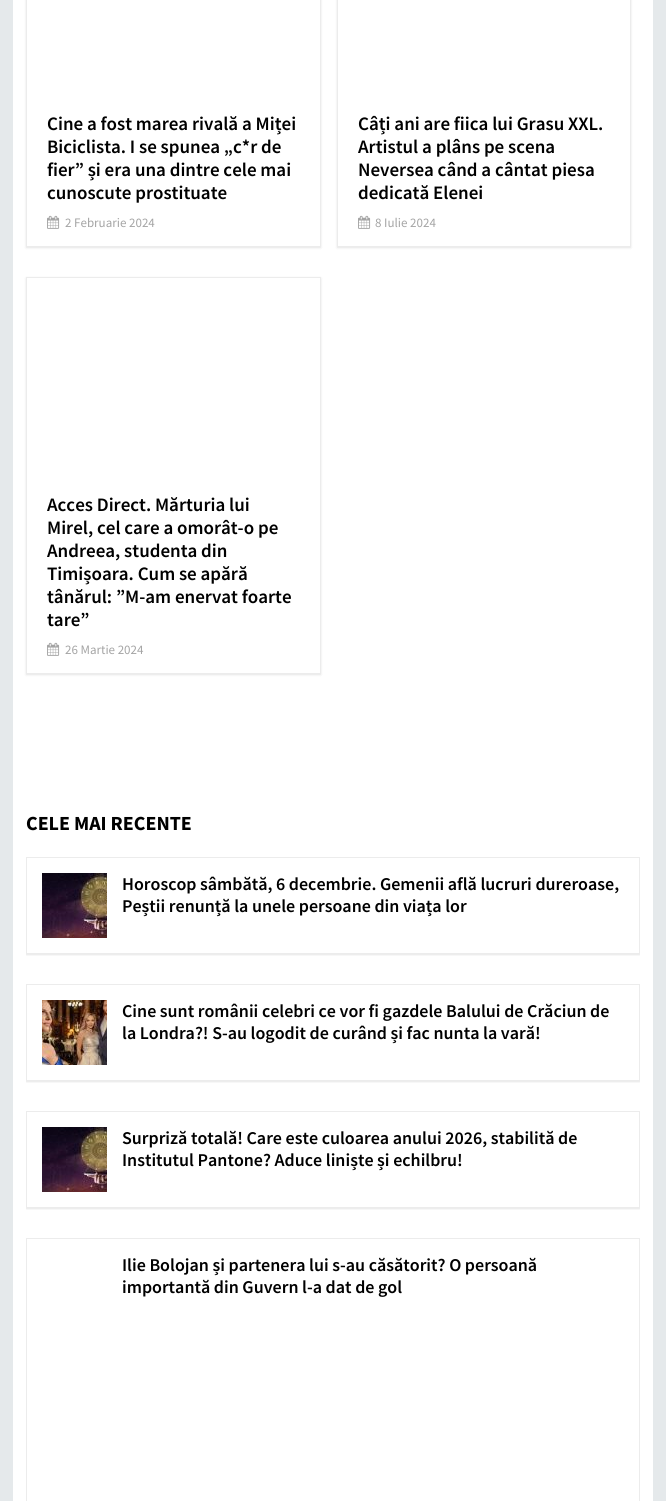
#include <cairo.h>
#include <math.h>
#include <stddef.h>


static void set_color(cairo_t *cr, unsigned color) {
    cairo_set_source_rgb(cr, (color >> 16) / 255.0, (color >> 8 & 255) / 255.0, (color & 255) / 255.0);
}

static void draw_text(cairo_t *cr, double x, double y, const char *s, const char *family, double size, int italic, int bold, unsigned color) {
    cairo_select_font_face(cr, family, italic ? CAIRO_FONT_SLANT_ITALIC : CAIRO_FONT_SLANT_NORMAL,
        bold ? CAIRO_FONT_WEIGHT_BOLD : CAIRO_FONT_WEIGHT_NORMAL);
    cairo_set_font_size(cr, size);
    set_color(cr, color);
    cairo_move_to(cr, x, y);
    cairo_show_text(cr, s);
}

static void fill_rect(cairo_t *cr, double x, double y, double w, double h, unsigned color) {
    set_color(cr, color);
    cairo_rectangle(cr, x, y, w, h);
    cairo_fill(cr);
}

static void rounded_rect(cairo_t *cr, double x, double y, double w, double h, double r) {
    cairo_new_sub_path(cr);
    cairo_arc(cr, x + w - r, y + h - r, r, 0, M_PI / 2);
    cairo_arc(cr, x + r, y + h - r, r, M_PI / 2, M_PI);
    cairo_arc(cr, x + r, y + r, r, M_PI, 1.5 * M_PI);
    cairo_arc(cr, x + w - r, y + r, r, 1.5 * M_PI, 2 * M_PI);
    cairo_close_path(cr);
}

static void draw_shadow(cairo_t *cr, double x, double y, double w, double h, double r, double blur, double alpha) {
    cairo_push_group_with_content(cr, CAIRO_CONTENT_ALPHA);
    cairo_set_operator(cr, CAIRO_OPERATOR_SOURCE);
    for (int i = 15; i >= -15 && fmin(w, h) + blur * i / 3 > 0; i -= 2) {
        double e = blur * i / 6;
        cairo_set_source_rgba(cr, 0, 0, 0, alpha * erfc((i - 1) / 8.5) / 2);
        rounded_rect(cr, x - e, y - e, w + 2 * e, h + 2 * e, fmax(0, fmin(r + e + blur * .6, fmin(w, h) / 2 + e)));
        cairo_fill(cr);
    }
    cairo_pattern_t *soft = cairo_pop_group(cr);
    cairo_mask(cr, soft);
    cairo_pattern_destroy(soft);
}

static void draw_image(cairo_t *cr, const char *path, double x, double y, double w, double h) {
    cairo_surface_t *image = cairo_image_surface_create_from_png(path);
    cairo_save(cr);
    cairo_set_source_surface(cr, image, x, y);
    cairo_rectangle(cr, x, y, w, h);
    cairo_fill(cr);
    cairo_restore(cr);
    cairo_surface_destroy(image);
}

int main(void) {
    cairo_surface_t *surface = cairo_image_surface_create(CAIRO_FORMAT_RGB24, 666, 1501);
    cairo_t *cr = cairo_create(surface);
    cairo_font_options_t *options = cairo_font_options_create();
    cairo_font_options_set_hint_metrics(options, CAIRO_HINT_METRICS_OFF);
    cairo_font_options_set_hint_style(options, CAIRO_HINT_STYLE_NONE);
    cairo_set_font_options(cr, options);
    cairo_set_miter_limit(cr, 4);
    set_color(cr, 0xE5E9EB);
    cairo_paint(cr);
    fill_rect(cr, 13, 0, 640, 1501, 0xFFFFFF);
    cairo_save(cr);
    cairo_set_fill_rule(cr, CAIRO_FILL_RULE_EVEN_ODD);
    cairo_new_path(cr);
    cairo_move_to(cr, 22, 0);
    cairo_line_to(cr, 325, 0);
    cairo_line_to(cr, 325, 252);
    cairo_line_to(cr, 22, 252);
    cairo_close_path(cr);
    cairo_move_to(cr, 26, -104);
    cairo_line_to(cr, 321, -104);
    cairo_line_to(cr, 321, 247);
    cairo_line_to(cr, 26, 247);
    cairo_close_path(cr);
    cairo_clip(cr);
    set_color(cr, 0x000000);
    draw_shadow(cr, 26, -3, 295, 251, 0, 1, 0.1);
    cairo_restore(cr);
    cairo_rectangle(cr, 26.5, -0.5, 294, 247);
    set_color(cr, 0xECECEC);
    cairo_set_line_width(cr, 1);
    cairo_stroke(cr);
    draw_text(cr, 47, 130, "Cine a fost marea rivală a Miței", "Source Sans Pro SemiBold", 19, 0, 0, 0x000000);
    draw_text(cr, 47, 153, "Biciclista. I se spunea „c*r de", "Source Sans Pro SemiBold", 19, 0, 0, 0x000000);
    draw_text(cr, 47, 176, "fier” și era una dintre cele mai", "Source Sans Pro SemiBold", 19, 0, 0, 0x000000);
    draw_text(cr, 47, 199, "cunoscute prostituate", "Source Sans Pro SemiBold", 19, 0, 0, 0x000000);
    draw_image(cr, "assets/img1.png", 47, 215, 13, 14);
    draw_text(cr, 65, 227, "2 Februarie 2024", "Source Sans Pro", 13, 0, 0, 0xA4A4A4);
    cairo_save(cr);
    cairo_set_fill_rule(cr, CAIRO_FILL_RULE_EVEN_ODD);
    cairo_new_path(cr);
    cairo_move_to(cr, 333, 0);
    cairo_line_to(cr, 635, 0);
    cairo_line_to(cr, 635, 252);
    cairo_line_to(cr, 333, 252);
    cairo_close_path(cr);
    cairo_move_to(cr, 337, -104);
    cairo_line_to(cr, 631, -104);
    cairo_line_to(cr, 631, 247);
    cairo_line_to(cr, 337, 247);
    cairo_close_path(cr);
    cairo_clip(cr);
    set_color(cr, 0x000000);
    draw_shadow(cr, 337, -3, 294, 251, 0, 1, 0.1);
    cairo_restore(cr);
    cairo_rectangle(cr, 337.5, -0.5, 293, 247);
    set_color(cr, 0xECECEC);
    cairo_stroke(cr);
    draw_text(cr, 358, 130, "Câți ani are fiica lui Grasu XXL.", "Source Sans Pro SemiBold", 19, 0, 0, 0x000000);
    draw_text(cr, 358, 153, "Artistul a plâns pe scena", "Source Sans Pro SemiBold", 19, 0, 0, 0x000000);
    draw_text(cr, 358, 176, "Neversea când a cântat piesa", "Source Sans Pro SemiBold", 19, 0, 0, 0x000000);
    draw_text(cr, 358, 199, "dedicată Elenei", "Source Sans Pro SemiBold", 19, 0, 0, 0x000000);
    draw_image(cr, "assets/img1.png", 358, 215, 13, 14);
    draw_text(cr, 375, 227, "8 Iulie 2024", "Source Sans Pro", 13, 0, 0, 0xA4A4A4);
    cairo_save(cr);
    cairo_set_fill_rule(cr, CAIRO_FILL_RULE_EVEN_ODD);
    cairo_new_path(cr);
    cairo_move_to(cr, 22, 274);
    cairo_line_to(cr, 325, 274);
    cairo_line_to(cr, 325, 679);
    cairo_line_to(cr, 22, 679);
    cairo_close_path(cr);
    cairo_move_to(cr, 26, 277);
    cairo_line_to(cr, 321, 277);
    cairo_line_to(cr, 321, 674);
    cairo_line_to(cr, 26, 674);
    cairo_close_path(cr);
    cairo_clip(cr);
    set_color(cr, 0x000000);
    draw_shadow(cr, 26, 278, 295, 397, 0, 1, 0.1);
    cairo_restore(cr);
    cairo_rectangle(cr, 26.5, 277.5, 294, 396);
    set_color(cr, 0xECECEC);
    cairo_stroke(cr);
    draw_text(cr, 47, 511, "Acces Direct. Mărturia lui", "Source Sans Pro SemiBold", 19, 0, 0, 0x000000);
    draw_text(cr, 47, 534, "Mirel, cel care a omorât-o pe", "Source Sans Pro SemiBold", 19, 0, 0, 0x000000);
    draw_text(cr, 47, 557, "Andreea, studenta din", "Source Sans Pro SemiBold", 19, 0, 0, 0x000000);
    draw_text(cr, 47, 580, "Timișoara. Cum se apără", "Source Sans Pro SemiBold", 19, 0, 0, 0x000000);
    draw_text(cr, 47, 603, "tânărul: ”M-am enervat foarte", "Source Sans Pro SemiBold", 19, 0, 0, 0x000000);
    draw_text(cr, 47, 626, "tare”", "Source Sans Pro SemiBold", 19, 0, 0, 0x000000);
    draw_image(cr, "assets/img1.png", 47, 642, 13, 14);
    draw_text(cr, 65, 654, "26 Martie 2024", "Source Sans Pro", 13, 0, 0, 0xA4A4A4);
    draw_text(cr, 26, 830, "CELE MAI RECENTE", "Source Sans Pro", 20, 0, 1, 0x000000);
    cairo_save(cr);
    cairo_rectangle(cr, 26, 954, 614, 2);
    cairo_clip(cr);
    set_color(cr, 0x000000);
    draw_shadow(cr, 26, 858, 614, 97, 0, 1, 0.1);
    cairo_restore(cr);
    cairo_rectangle(cr, 26.5, 857.5, 613, 96);
    set_color(cr, 0xECECEC);
    cairo_stroke(cr);
    draw_image(cr, "assets/img2.png", 42, 873, 65, 65);
    draw_text(cr, 122, 890, "Horoscop sâmbătă, 6 decembrie. Gemenii află lucruri dureroase,", "Source Sans Pro SemiBold", 18, 0, 0, 0x000000);
    draw_text(cr, 122, 912, "Peștii renunță la unele persoane din viața lor", "Source Sans Pro SemiBold", 18, 0, 0, 0x000000);
    cairo_save(cr);
    cairo_rectangle(cr, 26, 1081, 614, 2);
    cairo_clip(cr);
    set_color(cr, 0x000000);
    draw_shadow(cr, 26, 985, 614, 97, 0, 1, 0.1);
    cairo_restore(cr);
    cairo_rectangle(cr, 26.5, 984.5, 613, 96);
    set_color(cr, 0xECECEC);
    cairo_stroke(cr);
    draw_image(cr, "assets/img3.png", 42, 1000, 65, 65);
    draw_text(cr, 122, 1017, "Cine sunt românii celebri ce vor fi gazdele Balului de Crăciun de", "Source Sans Pro SemiBold", 18, 0, 0, 0x000000);
    draw_text(cr, 122, 1039, "la Londra?! S-au logodit de curând și fac nunta la vară!", "Source Sans Pro SemiBold", 18, 0, 0, 0x000000);
    cairo_save(cr);
    cairo_rectangle(cr, 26, 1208, 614, 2);
    cairo_clip(cr);
    set_color(cr, 0x000000);
    draw_shadow(cr, 26, 1112, 614, 97, 0, 1, 0.1);
    cairo_restore(cr);
    cairo_rectangle(cr, 26.5, 1111.5, 613, 96);
    set_color(cr, 0xECECEC);
    cairo_stroke(cr);
    draw_image(cr, "assets/img2.png", 42, 1127, 65, 65);
    draw_text(cr, 122, 1144, "Surpriză totală! Care este culoarea anului 2026, stabilită de", "Source Sans Pro SemiBold", 18, 0, 0, 0x000000);
    draw_text(cr, 122, 1166, "Institutul Pantone? Aduce liniște și echilbru!", "Source Sans Pro SemiBold", 18, 0, 0, 0x000000);
    cairo_rectangle(cr, 26.5, 1238.5, 613, 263);
    set_color(cr, 0xECECEC);
    cairo_stroke(cr);
    draw_text(cr, 122, 1271, "Ilie Bolojan și partenera lui s-au căsătorit? O persoană", "Source Sans Pro SemiBold", 18, 0, 0, 0x000000);
    draw_text(cr, 122, 1293, "importantă din Guvern l-a dat de gol", "Source Sans Pro SemiBold", 18, 0, 0, 0x000000);
    cairo_surface_write_to_png(surface, "output.png");
    cairo_font_options_destroy(options);
    cairo_destroy(cr);
    cairo_surface_destroy(surface);
    return 0;
}
